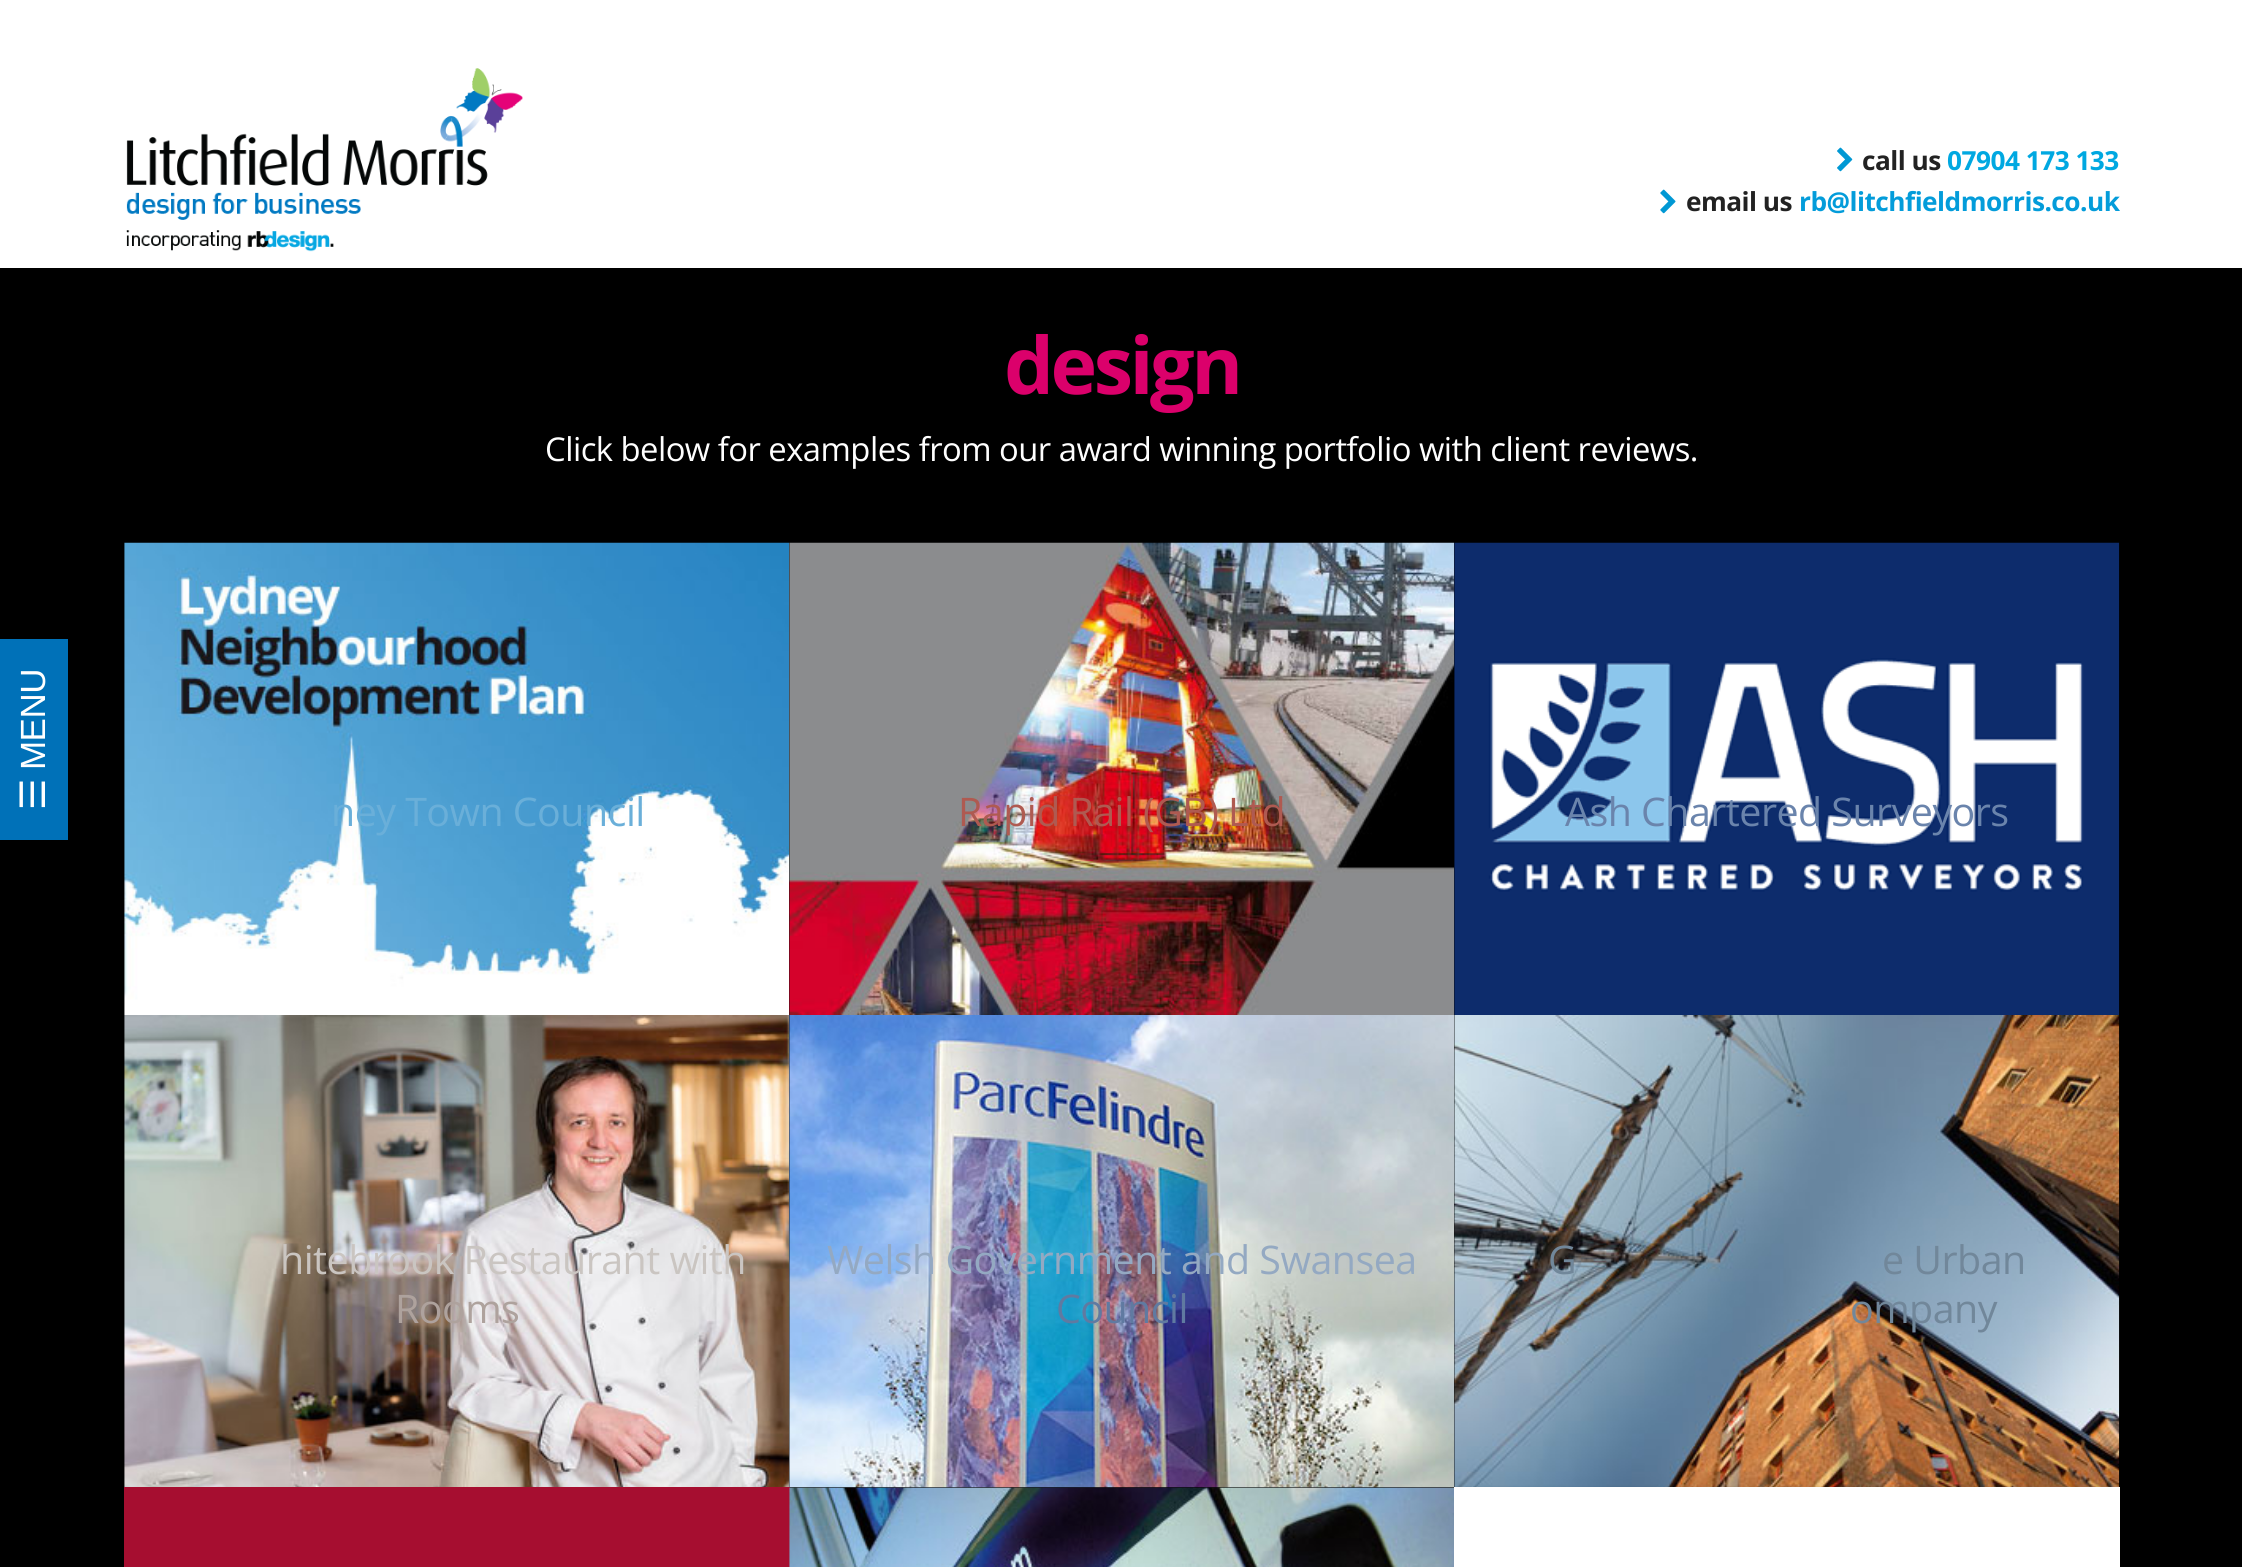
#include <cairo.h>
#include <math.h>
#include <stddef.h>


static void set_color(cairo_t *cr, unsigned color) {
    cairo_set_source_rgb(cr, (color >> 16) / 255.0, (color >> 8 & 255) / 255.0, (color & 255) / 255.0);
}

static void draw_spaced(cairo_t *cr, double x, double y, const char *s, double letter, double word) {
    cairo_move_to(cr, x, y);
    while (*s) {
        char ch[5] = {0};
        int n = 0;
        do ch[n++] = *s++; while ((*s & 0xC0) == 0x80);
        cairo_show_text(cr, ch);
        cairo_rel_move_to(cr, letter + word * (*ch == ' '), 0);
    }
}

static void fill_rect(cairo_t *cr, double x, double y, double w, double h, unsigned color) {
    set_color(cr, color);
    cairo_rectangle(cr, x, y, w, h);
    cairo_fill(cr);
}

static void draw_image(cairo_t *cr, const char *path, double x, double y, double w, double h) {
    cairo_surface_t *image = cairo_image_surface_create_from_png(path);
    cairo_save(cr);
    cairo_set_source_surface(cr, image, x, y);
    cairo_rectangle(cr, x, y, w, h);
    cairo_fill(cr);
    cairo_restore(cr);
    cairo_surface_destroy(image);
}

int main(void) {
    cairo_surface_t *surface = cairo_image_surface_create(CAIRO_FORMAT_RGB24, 2242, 1567);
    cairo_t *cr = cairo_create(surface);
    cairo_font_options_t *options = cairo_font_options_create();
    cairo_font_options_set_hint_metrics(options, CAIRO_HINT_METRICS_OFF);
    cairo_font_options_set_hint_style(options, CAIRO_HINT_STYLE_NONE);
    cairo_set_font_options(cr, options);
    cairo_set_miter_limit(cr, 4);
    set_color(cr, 0xFFFFFF);
    cairo_paint(cr);
    fill_rect(cr, 0, 268, 2242, 1299, 0x000000);
    fill_rect(cr, 0, 639, 68, 201, 0x0071B8);
    cairo_select_font_face(cr, "Liberation Sans", CAIRO_FONT_SLANT_NORMAL, CAIRO_FONT_WEIGHT_NORMAL);
    cairo_set_font_size(cr, 35);
    set_color(cr, 0xFFFFFF);
    cairo_save(cr);
    cairo_translate(cr, 45, 770);
    cairo_rotate(cr, -90 * M_PI / 180);
    draw_spaced(cr, 0, 0, "MENU", -0.53, 0);
    cairo_restore(cr);
    cairo_select_font_face(cr, "DejaVu Sans", CAIRO_FONT_SLANT_NORMAL, CAIRO_FONT_WEIGHT_NORMAL);
    cairo_save(cr);
    cairo_translate(cr, 45, 810);
    cairo_rotate(cr, -90 * M_PI / 180);
    draw_spaced(cr, 0, 0, "☰", -0.53, 0);
    cairo_restore(cr);
    draw_image(cr, "assets/img1.png", 126, 68, 397, 184);
    draw_image(cr, "assets/img2.png", 1837, 147, 16, 25);
    cairo_select_font_face(cr, "Open Sans", CAIRO_FONT_SLANT_NORMAL, CAIRO_FONT_WEIGHT_BOLD);
    cairo_set_font_size(cr, 26.25);
    set_color(cr, 0x222222);
    draw_spaced(cr, 1862, 170, "call us", -0.53, 0);
    set_color(cr, 0x00A8E1);
    draw_spaced(cr, 1947, 170, "07904 173 133", -0.53, 0);
    draw_image(cr, "assets/img3.png", 1660, 189, 16, 25);
    set_color(cr, 0x222222);
    draw_spaced(cr, 1686, 211, "email us", -0.53, 0);
    set_color(cr, 0x039CDA);
    draw_spaced(cr, 1799, 211, "rb@litchfieldmorris.co.uk", -0.53, 0);
    cairo_set_font_size(cr, 79);
    set_color(cr, 0xDB006B);
    draw_spaced(cr, 1004, 394, "design", -3.5, 0);
    cairo_select_font_face(cr, "Open Sans", CAIRO_FONT_SLANT_NORMAL, CAIRO_FONT_WEIGHT_NORMAL);
    cairo_set_font_size(cr, 32.8);
    set_color(cr, 0xFFFFFF);
    draw_spaced(cr, 545, 461, "Click below for examples from our award winning portfolio with client reviews.", -0.53, 0);
    draw_image(cr, "assets/img4.png", 124, 542, 666, 473);
    cairo_set_font_size(cr, 39.4);
    set_color(cr, 0x6AAFD9);
    draw_spaced(cr, 331, 826, "ney Town Council", -0.53, 0);
    draw_image(cr, "assets/img5.png", 789, 542, 666, 473);
    set_color(cr, 0xAF5A51);
    draw_spaced(cr, 958, 826, "Rapid Rail (GB) Ltd", -0.53, 0);
    draw_image(cr, "assets/img6.png", 1454, 542, 666, 473);
    set_color(cr, 0x6A84AC);
    draw_spaced(cr, 1565, 826, "Ash Chartered Surveyors", -0.53, 0);
    draw_image(cr, "assets/img7.png", 124, 1015, 666, 472);
    set_color(cr, 0xCAC5C1);
    draw_spaced(cr, 280, 1274, "hitebrook Restaurant with", -0.53, 0);
    set_color(cr, 0xAEA29D);
    draw_spaced(cr, 395, 1323, "Rooms", -0.53, 0);
    draw_image(cr, "assets/img8.png", 789, 1015, 666, 473);
    set_color(cr, 0x94A9C2);
    draw_spaced(cr, 827, 1274, "Welsh Government and Swansea", -0.53, 0);
    set_color(cr, 0x607AA1);
    draw_spaced(cr, 1056, 1323, "Council", -0.53, 0);
    draw_image(cr, "assets/img9.png", 1454, 1015, 666, 472);
    set_color(cr, 0x71879A);
    draw_spaced(cr, 1548, 1274, "G", -0.53, 0);
    draw_spaced(cr, 1882, 1274, "e Urban", -0.53, 0);
    draw_spaced(cr, 1850, 1323, "ompany", -0.53, 0);
    fill_rect(cr, 124, 1487, 666, 80, 0xA60E30);
    draw_image(cr, "assets/img10.png", 789, 1487, 665, 80);
    fill_rect(cr, 1454, 1487, 666, 80, 0xFFFFFF);
    cairo_surface_write_to_png(surface, "output.png");
    cairo_font_options_destroy(options);
    cairo_destroy(cr);
    cairo_surface_destroy(surface);
    return 0;
}
